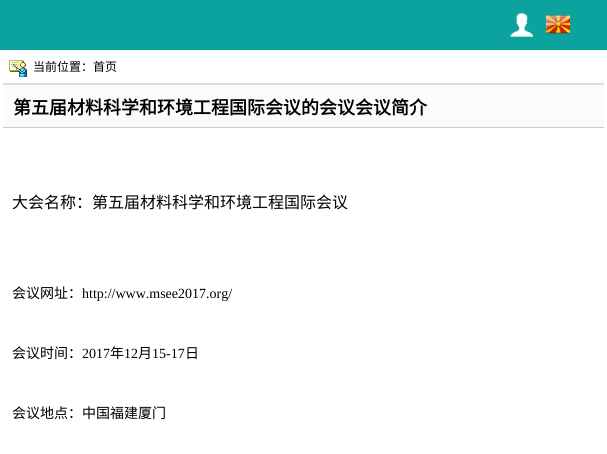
#include <cairo.h>
#include <math.h>
#include <stddef.h>


static void set_color(cairo_t *cr, unsigned color) {
    cairo_set_source_rgb(cr, (color >> 16) / 255.0, (color >> 8 & 255) / 255.0, (color & 255) / 255.0);
}

static void draw_text(cairo_t *cr, double x, double y, const char *s, const char *family, double size, int italic, int bold, unsigned color) {
    cairo_select_font_face(cr, family, italic ? CAIRO_FONT_SLANT_ITALIC : CAIRO_FONT_SLANT_NORMAL,
        bold ? CAIRO_FONT_WEIGHT_BOLD : CAIRO_FONT_WEIGHT_NORMAL);
    cairo_set_font_size(cr, size);
    set_color(cr, color);
    cairo_move_to(cr, x, y);
    cairo_show_text(cr, s);
}

static void fill_rect(cairo_t *cr, double x, double y, double w, double h, unsigned color) {
    set_color(cr, color);
    cairo_rectangle(cr, x, y, w, h);
    cairo_fill(cr);
}

static void draw_image(cairo_t *cr, const char *path, double x, double y, double w, double h) {
    cairo_surface_t *image = cairo_image_surface_create_from_png(path);
    cairo_save(cr);
    cairo_set_source_surface(cr, image, x, y);
    cairo_rectangle(cr, x, y, w, h);
    cairo_fill(cr);
    cairo_restore(cr);
    cairo_surface_destroy(image);
}

int main(void) {
    cairo_surface_t *surface = cairo_image_surface_create(CAIRO_FORMAT_RGB24, 607, 454);
    cairo_t *cr = cairo_create(surface);
    cairo_font_options_t *options = cairo_font_options_create();
    cairo_font_options_set_hint_metrics(options, CAIRO_HINT_METRICS_OFF);
    cairo_font_options_set_hint_style(options, CAIRO_HINT_STYLE_NONE);
    cairo_set_font_options(cr, options);
    cairo_set_miter_limit(cr, 4);
    set_color(cr, 0xFFFFFF);
    cairo_paint(cr);
    fill_rect(cr, 0, 0, 607, 50, 0x0CA29E);
    draw_image(cr, "assets/img1.png", 510, 13, 24, 24);
    draw_image(cr, "assets/img2.png", 546, 15, 24, 19);
    draw_image(cr, "assets/img3.png", 9, 60, 18, 17);
    draw_text(cr, 33, 71, "当前位置：首页", "Noto Sans CJK SC", 12, 0, 0, 0x000000);
    fill_rect(cr, 3, 83, 601, 2, 0xDDDDDD);
    fill_rect(cr, 3, 85, 601, 42, 0xFBFBFB);
    fill_rect(cr, 3, 127, 601, 1, 0xCCCCCC);
    draw_text(cr, 13, 114, "第五届材料科学和环境工程国际会议的会议会议简介", "Noto Sans CJK SC", 18, 0, 1, 0x000000);
    draw_text(cr, 12, 208, "大会名称：第五届材料科学和环境工程国际会议", "Noto Sans CJK SC", 16, 0, 0, 0x000000);
    draw_text(cr, 12, 298, "会议网址：", "Noto Sans CJK SC", 14, 0, 0, 0x000000);
    draw_text(cr, 82, 298, "http://www.msee2017.org/", "Liberation Serif", 14, 0, 0, 0x000000);
    draw_text(cr, 12, 358, "会议时间：", "Noto Sans CJK SC", 14, 0, 0, 0x000000);
    draw_text(cr, 82, 358, "2017", "Liberation Serif", 14, 0, 0, 0x000000);
    draw_text(cr, 110, 358, "年", "Noto Sans CJK SC", 14, 0, 0, 0x000000);
    draw_text(cr, 124, 358, "12", "Liberation Serif", 14, 0, 0, 0x000000);
    draw_text(cr, 138, 358, "月", "Noto Sans CJK SC", 14, 0, 0, 0x000000);
    draw_text(cr, 152, 358, "15-17", "Liberation Serif", 14, 0, 0, 0x000000);
    draw_text(cr, 185, 358, "日", "Noto Sans CJK SC", 14, 0, 0, 0x000000);
    draw_text(cr, 12, 418, "会议地点：中国福建厦门", "Noto Sans CJK SC", 14, 0, 0, 0x000000);
    cairo_surface_write_to_png(surface, "output.png");
    cairo_font_options_destroy(options);
    cairo_destroy(cr);
    cairo_surface_destroy(surface);
    return 0;
}
